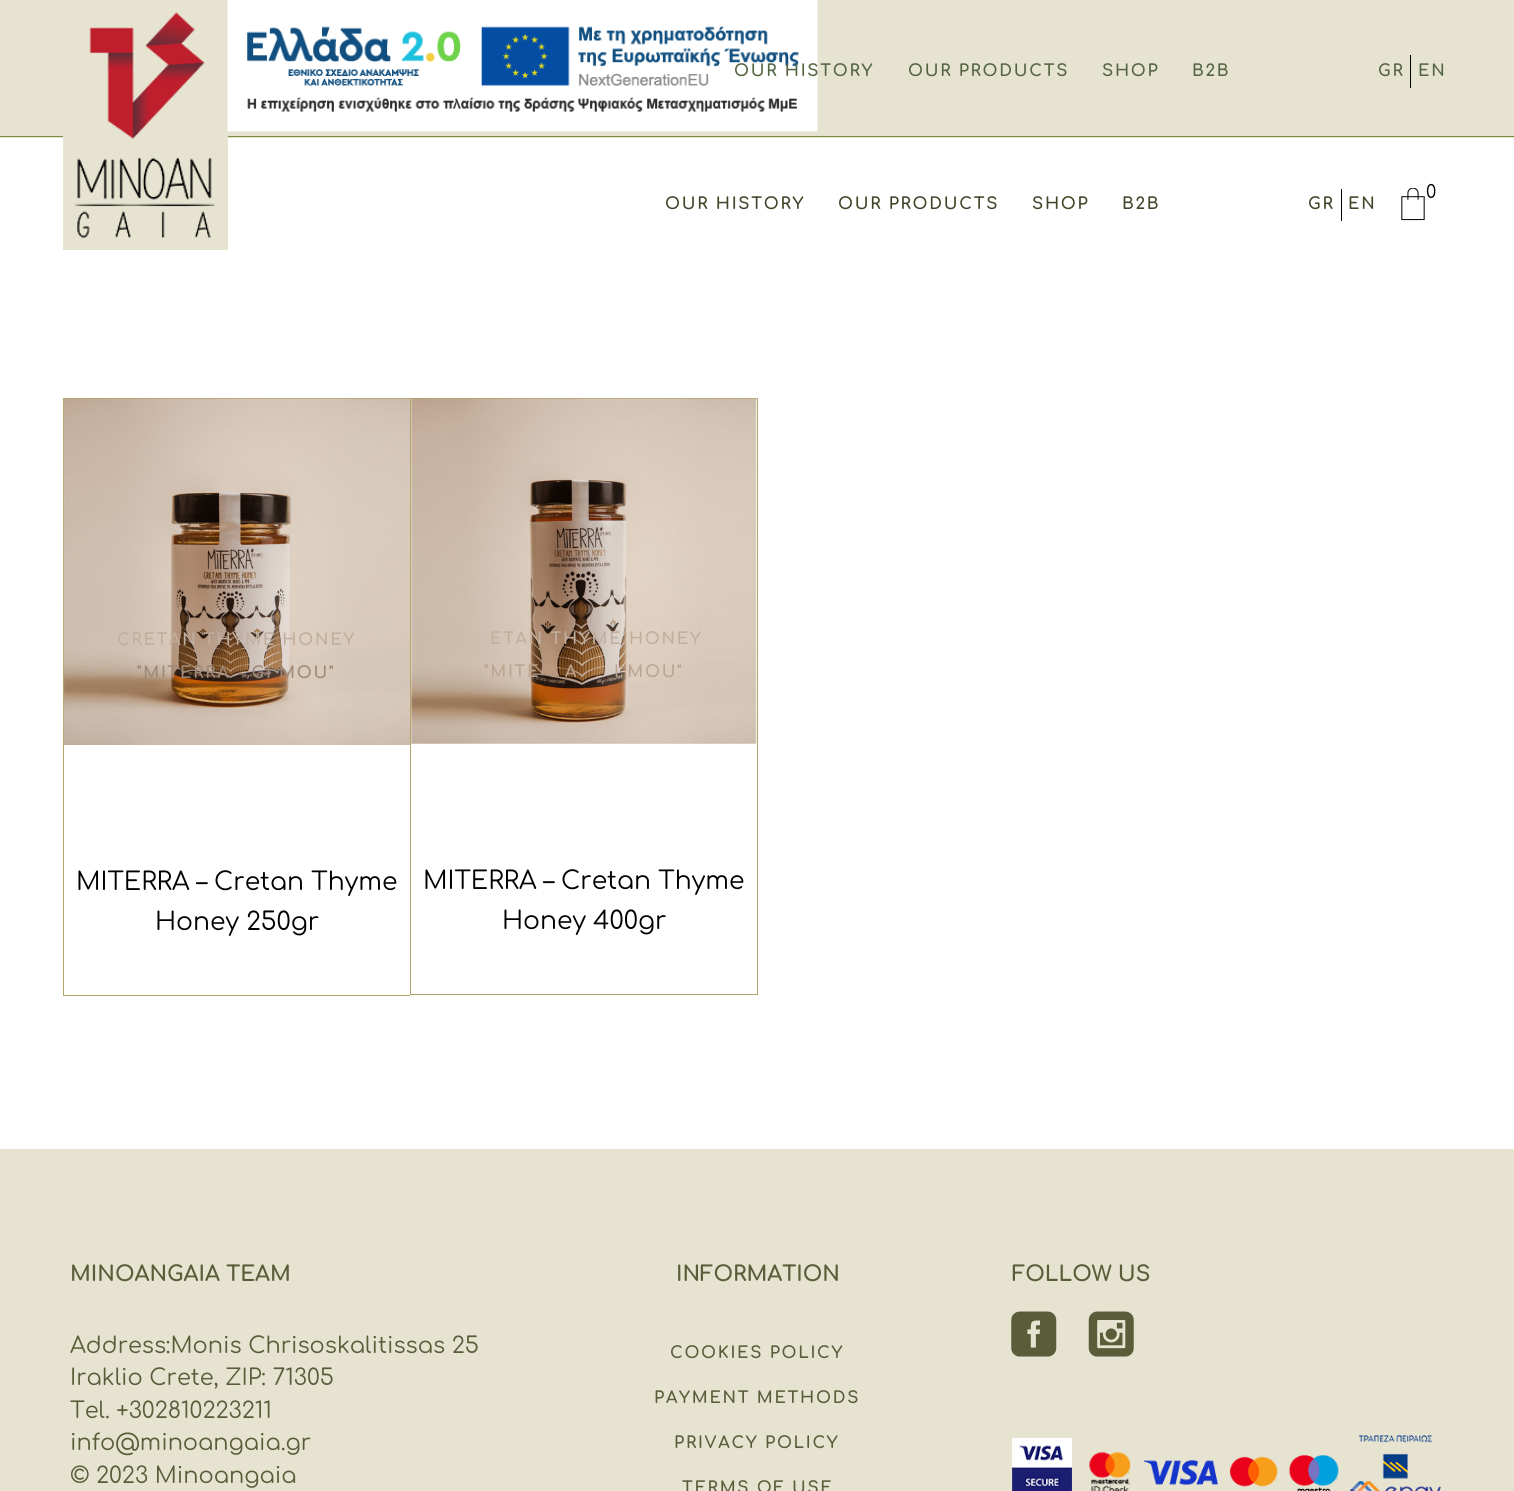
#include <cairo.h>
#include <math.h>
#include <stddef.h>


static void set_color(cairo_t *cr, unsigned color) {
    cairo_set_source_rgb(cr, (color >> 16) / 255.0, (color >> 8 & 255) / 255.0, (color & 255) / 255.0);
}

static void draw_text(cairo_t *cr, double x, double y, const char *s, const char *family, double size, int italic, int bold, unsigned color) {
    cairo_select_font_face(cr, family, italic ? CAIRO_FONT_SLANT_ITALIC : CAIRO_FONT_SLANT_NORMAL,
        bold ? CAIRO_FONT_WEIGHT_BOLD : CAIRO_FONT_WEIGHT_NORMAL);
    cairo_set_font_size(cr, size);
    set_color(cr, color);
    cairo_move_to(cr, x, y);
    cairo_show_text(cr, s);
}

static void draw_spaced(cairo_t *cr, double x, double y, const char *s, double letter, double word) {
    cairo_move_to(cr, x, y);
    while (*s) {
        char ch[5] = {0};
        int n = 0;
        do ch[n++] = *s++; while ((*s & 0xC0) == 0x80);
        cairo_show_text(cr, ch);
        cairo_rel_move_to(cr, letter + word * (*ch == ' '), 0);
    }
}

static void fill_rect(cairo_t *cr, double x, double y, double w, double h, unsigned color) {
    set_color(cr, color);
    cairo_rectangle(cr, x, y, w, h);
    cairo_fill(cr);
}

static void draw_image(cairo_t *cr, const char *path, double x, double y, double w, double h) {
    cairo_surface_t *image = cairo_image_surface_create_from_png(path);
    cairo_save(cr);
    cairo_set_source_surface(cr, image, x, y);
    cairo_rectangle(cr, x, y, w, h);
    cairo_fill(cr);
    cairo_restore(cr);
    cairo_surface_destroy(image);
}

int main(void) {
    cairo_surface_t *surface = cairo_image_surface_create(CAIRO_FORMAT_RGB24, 1514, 1491);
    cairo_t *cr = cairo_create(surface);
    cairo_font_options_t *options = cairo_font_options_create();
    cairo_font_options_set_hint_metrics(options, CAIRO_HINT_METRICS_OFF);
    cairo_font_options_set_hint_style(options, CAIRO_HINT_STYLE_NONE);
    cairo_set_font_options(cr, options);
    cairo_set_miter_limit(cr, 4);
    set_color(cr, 0xFFFFFF);
    cairo_paint(cr);
    fill_rect(cr, 0, 0, 1514, 138, 0xE6E3D0);
    draw_image(cr, "assets/img2.png", 227, 0, 591, 132);
    cairo_select_font_face(cr, "Comfortaa", CAIRO_FONT_SLANT_NORMAL, CAIRO_FONT_WEIGHT_BOLD);
    cairo_set_font_size(cr, 16.25);
    set_color(cr, 0x556543);
    draw_spaced(cr, 734, 76, "OUR HISTORY", 1.75, 0);
    draw_spaced(cr, 908, 76, "OUR PRODUCTS", 1.75, 0);
    draw_spaced(cr, 1102, 76, "SHOP", 1.75, 0);
    draw_spaced(cr, 1192, 76, "B2B", 1.75, 0);
    draw_spaced(cr, 1378, 76, "GR", 1.75, 0);
    fill_rect(cr, 1410, 55, 1, 33, 0x000000);
    set_color(cr, 0x556543);
    draw_spaced(cr, 1418, 76, "ΕΝ", 1.75, 0);
    fill_rect(cr, 0, 136, 1514, 1, 0x798E3D);
    fill_rect(cr, 63, 136, 165, 114, 0xE6E3D0);
    draw_image(cr, "assets/img1.png", 75, 12, 140, 226);
    draw_image(cr, "assets/img3.png", 1401, 188, 24, 33);
    draw_text(cr, 1426, 198, "0", "Comfortaa", 18, 0, 0, 0x000000);
    cairo_select_font_face(cr, "Comfortaa", CAIRO_FONT_SLANT_NORMAL, CAIRO_FONT_WEIGHT_BOLD);
    cairo_set_font_size(cr, 16.25);
    set_color(cr, 0x3F472A);
    draw_spaced(cr, 665, 209, "OUR HISTORY", 1.75, 0);
    draw_spaced(cr, 838, 209, "OUR PRODUCTS", 1.75, 0);
    draw_spaced(cr, 1032, 209, "SHOP", 1.75, 0);
    draw_spaced(cr, 1122, 209, "B2B", 1.75, 0);
    draw_spaced(cr, 1308, 209, "GR", 1.75, 0);
    fill_rect(cr, 1341, 189, 1, 32, 0x000000);
    set_color(cr, 0x3F472A);
    draw_spaced(cr, 1348, 209, "ΕΝ", 1.75, 0);
    fill_rect(cr, 63, 398, 347, 1, 0xB5A46D);
    fill_rect(cr, 63, 995, 347, 1, 0xB5A46D);
    fill_rect(cr, 63, 398, 1, 598, 0xB5A46D);
    draw_image(cr, "assets/img4.png", 63, 398, 347, 347);
    set_color(cr, 0xC0AE9E);
    draw_spaced(cr, 117, 645, "CRETAN THYME HONEY", 1.75, 0);
    set_color(cr, 0x9E8977);
    draw_spaced(cr, 137, 678, "\"MITERRA - GI MOU\"", 1.75, 0);
    draw_text(cr, 76, 890, "MITERRA – Cretan Thyme", "Comfortaa", 25, 0, 0, 0x000000);
    draw_text(cr, 155, 930, "Honey 250gr", "Comfortaa", 25, 0, 0, 0x000000);
    cairo_rectangle(cr, 410.5, 398.5, 347, 596);
    set_color(cr, 0xB5A46D);
    cairo_set_line_width(cr, 1);
    cairo_stroke(cr);
    draw_image(cr, "assets/img5.png", 411, 398, 346, 346);
    cairo_select_font_face(cr, "Comfortaa", CAIRO_FONT_SLANT_NORMAL, CAIRO_FONT_WEIGHT_BOLD);
    cairo_set_font_size(cr, 16.25);
    set_color(cr, 0xC0AE9E);
    draw_spaced(cr, 490, 644, "ETAN THYME HONEY", 1.75, 0);
    set_color(cr, 0xBBA591);
    draw_spaced(cr, 484, 677, "\"MITE", 1.75, 0);
    draw_spaced(cr, 565, 677, "A", 1.75, 0);
    draw_spaced(cr, 614, 677, "I MOU\"", 1.75, 0);
    draw_text(cr, 423, 889, "MITERRA – Cretan Thyme", "Comfortaa", 25, 0, 0, 0x000000);
    draw_text(cr, 502, 929, "Honey 400gr", "Comfortaa", 25, 0, 0, 0x000000);
    fill_rect(cr, 0, 1149, 1514, 342, 0xE6E3D0);
    draw_text(cr, 70, 1281, "MINOANGAIA TEAM", "Comfortaa", 21.25, 0, 1, 0x595D3A);
    draw_text(cr, 70, 1353, "Address:Monis Chrisoskalitissas 25", "Comfortaa", 22.5, 0, 0, 0x595D3A);
    draw_text(cr, 70, 1385, "Iraklio Crete, ZIP: 71305", "Comfortaa", 22.5, 0, 0, 0x595D3A);
    draw_text(cr, 70, 1418, "Tel. +302810223211", "Comfortaa", 22.5, 0, 0, 0x595D3A);
    draw_text(cr, 70, 1450, "info@minoangaia.gr", "Comfortaa", 22.5, 0, 0, 0x595D3A);
    draw_text(cr, 70, 1483, "© 2023 Minoangaia", "Comfortaa", 22.5, 0, 0, 0x595D3A);
    draw_text(cr, 676, 1281, "INFORMATION", "Comfortaa", 21.25, 0, 1, 0x595D3A);
    cairo_set_font_size(cr, 16.25);
    draw_spaced(cr, 670, 1358, "COOKIES POLICY", 1.75, 0);
    draw_spaced(cr, 654, 1403, "PAYMENT METHODS", 1.75, 0);
    draw_spaced(cr, 674, 1448, "PRIVACY POLICY", 1.75, 0);
    draw_spaced(cr, 682, 1493, "TERMS OF USE", 1.75, 0);
    draw_text(cr, 1012, 1281, "FOLLOW US", "Comfortaa", 21.25, 0, 1, 0x595D3A);
    draw_image(cr, "assets/img6.png", 1011, 1311, 46, 46);
    draw_image(cr, "assets/img7.png", 1088, 1311, 46, 46);
    draw_image(cr, "assets/img8.png", 1012, 1435, 429, 56);
    cairo_surface_write_to_png(surface, "output.png");
    cairo_font_options_destroy(options);
    cairo_destroy(cr);
    cairo_surface_destroy(surface);
    return 0;
}
